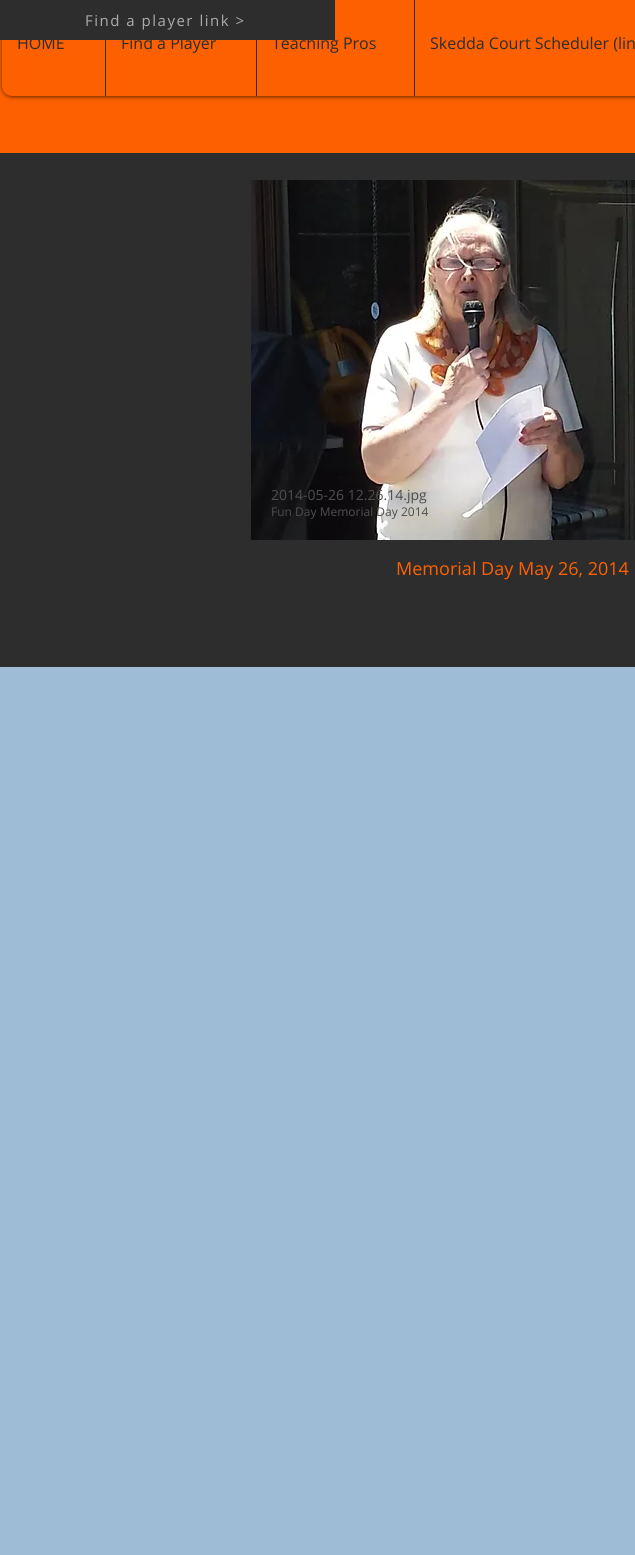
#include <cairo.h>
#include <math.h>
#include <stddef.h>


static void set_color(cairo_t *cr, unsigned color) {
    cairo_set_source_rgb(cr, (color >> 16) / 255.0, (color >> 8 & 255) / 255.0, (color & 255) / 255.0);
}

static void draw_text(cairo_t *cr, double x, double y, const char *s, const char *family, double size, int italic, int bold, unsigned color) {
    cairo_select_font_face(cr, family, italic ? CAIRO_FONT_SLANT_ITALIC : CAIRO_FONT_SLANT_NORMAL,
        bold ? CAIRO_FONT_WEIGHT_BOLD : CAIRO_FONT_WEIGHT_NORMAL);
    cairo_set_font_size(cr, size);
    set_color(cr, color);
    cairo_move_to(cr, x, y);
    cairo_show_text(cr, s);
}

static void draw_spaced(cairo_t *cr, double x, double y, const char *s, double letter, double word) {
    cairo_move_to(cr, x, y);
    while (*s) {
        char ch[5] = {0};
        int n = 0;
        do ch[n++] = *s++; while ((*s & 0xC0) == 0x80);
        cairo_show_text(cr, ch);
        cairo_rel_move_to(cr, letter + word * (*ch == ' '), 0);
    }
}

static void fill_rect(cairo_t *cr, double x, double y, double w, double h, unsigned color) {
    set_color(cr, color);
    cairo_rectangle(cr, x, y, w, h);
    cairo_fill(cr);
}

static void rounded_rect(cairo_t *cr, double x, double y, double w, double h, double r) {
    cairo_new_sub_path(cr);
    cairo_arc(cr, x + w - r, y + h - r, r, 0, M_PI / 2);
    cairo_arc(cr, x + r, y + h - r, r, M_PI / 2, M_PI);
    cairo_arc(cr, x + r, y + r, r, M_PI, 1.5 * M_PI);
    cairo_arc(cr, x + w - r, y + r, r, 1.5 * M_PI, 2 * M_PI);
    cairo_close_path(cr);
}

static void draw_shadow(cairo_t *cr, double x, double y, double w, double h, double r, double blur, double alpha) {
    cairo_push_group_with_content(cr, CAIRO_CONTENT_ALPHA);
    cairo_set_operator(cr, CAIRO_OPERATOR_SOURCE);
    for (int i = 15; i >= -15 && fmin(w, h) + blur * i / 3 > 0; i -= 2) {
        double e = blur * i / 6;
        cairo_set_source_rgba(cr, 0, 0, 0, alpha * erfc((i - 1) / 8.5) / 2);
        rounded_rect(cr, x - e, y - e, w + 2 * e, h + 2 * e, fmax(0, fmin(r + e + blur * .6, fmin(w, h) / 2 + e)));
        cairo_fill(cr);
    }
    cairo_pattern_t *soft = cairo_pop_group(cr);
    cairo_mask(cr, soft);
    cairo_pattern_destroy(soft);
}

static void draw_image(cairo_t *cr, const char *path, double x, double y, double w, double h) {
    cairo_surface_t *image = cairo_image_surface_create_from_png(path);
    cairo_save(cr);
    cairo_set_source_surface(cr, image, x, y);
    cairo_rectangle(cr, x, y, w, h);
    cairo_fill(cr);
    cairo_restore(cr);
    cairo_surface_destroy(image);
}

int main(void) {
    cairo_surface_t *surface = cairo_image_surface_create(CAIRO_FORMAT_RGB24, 635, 1555);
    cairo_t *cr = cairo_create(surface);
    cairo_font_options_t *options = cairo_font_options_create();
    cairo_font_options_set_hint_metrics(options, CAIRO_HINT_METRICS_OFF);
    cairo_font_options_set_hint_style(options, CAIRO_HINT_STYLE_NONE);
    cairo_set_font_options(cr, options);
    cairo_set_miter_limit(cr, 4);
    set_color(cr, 0x9FBCD7);
    cairo_paint(cr);
    fill_rect(cr, 0, 40, 635, 113, 0xFC6000);
    set_color(cr, 0x000000);
    draw_shadow(cr, 2, -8, 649, 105, 10, 2, 0.6);
    set_color(cr, 0xFC6000);
    rounded_rect(cr, 2, -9, 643, 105, 10);
    cairo_fill(cr);
    fill_rect(cr, 0, 0, 335, 40, 0x2D2D2D);
    cairo_select_font_face(cr, "Open Sans", CAIRO_FONT_SLANT_NORMAL, CAIRO_FONT_WEIGHT_NORMAL);
    cairo_set_font_size(cr, 15);
    set_color(cr, 0xABABAB);
    draw_spaced(cr, 85, 26, "Find a player link >", 1.5, 0);
    draw_text(cr, 17, 49, "HOME", "Open Sans", 16, 0, 0, 0x2D2D2D);
    fill_rect(cr, 105, 40, 1, 56, 0x2D2D2D);
    draw_text(cr, 121, 49, "Find a Player", "Open Sans", 16, 0, 0, 0x2D2D2D);
    fill_rect(cr, 256, 40, 1, 56, 0x2D2D2D);
    draw_text(cr, 272, 49, "Teaching Pros", "Open Sans", 16, 0, 0, 0x2D2D2D);
    fill_rect(cr, 414, 0, 1, 96, 0x2D2D2D);
    draw_text(cr, 430, 49, "Skedda Court Scheduler (lin", "Open Sans", 16, 0, 0, 0x2D2D2D);
    fill_rect(cr, 0, 153, 635, 514, 0x2D2D2D);
    draw_image(cr, "assets/img1.png", 251, 180, 384, 360);
    draw_text(cr, 271, 500, "2014-05-26 12.26.14.jpg", "Open Sans", 14, 0, 0, 0x4E4D4D);
    draw_text(cr, 271, 516, "Fun Day Memorial Day 2014", "Open Sans", 12, 0, 0, 0x4E4D4D);
    draw_text(cr, 396, 575, "Memorial Day May 26, 2014", "Open Sans", 18, 0, 0, 0xFC6000);
    cairo_surface_write_to_png(surface, "output.png");
    cairo_font_options_destroy(options);
    cairo_destroy(cr);
    cairo_surface_destroy(surface);
    return 0;
}
